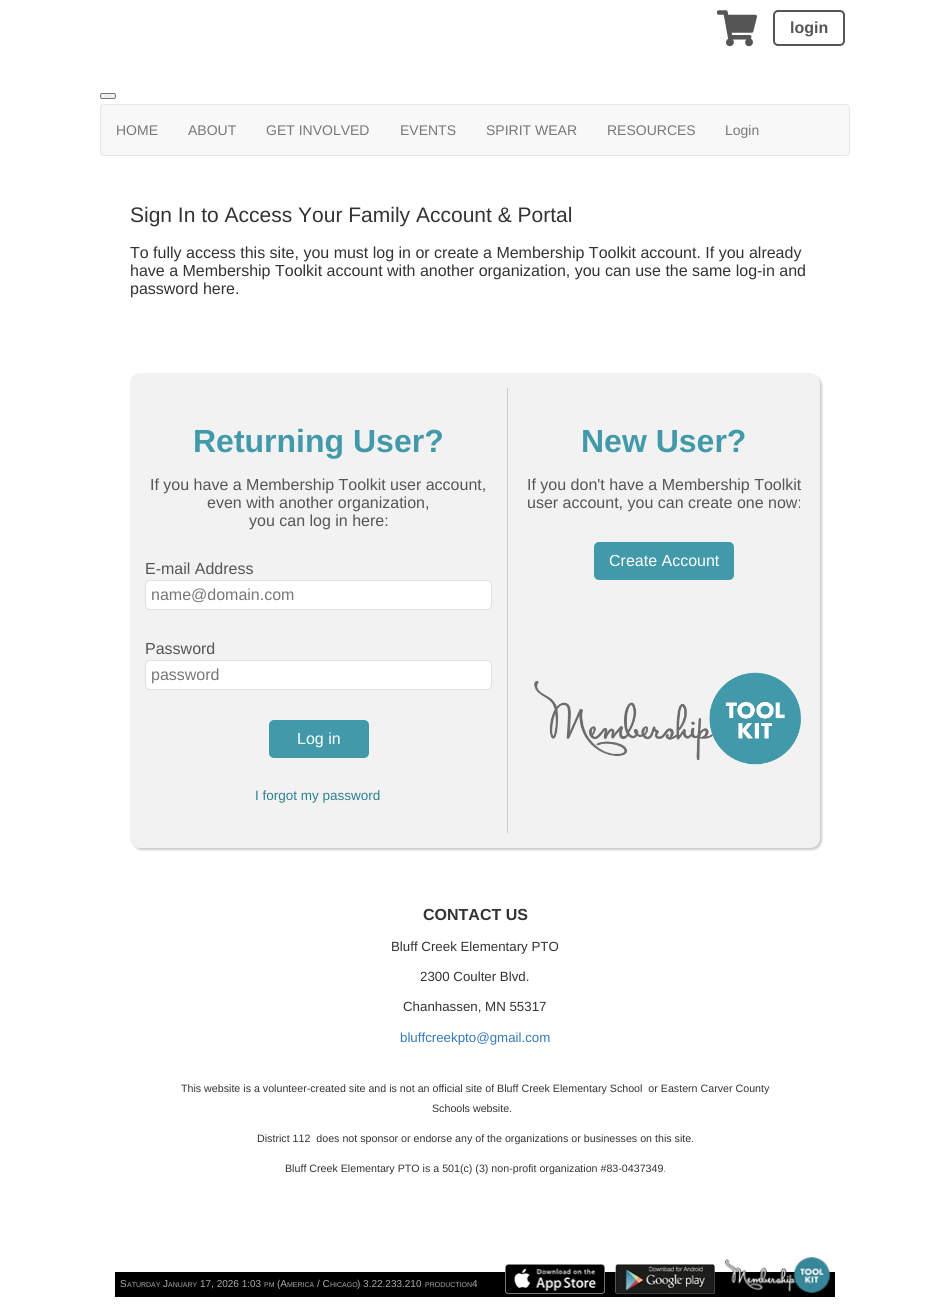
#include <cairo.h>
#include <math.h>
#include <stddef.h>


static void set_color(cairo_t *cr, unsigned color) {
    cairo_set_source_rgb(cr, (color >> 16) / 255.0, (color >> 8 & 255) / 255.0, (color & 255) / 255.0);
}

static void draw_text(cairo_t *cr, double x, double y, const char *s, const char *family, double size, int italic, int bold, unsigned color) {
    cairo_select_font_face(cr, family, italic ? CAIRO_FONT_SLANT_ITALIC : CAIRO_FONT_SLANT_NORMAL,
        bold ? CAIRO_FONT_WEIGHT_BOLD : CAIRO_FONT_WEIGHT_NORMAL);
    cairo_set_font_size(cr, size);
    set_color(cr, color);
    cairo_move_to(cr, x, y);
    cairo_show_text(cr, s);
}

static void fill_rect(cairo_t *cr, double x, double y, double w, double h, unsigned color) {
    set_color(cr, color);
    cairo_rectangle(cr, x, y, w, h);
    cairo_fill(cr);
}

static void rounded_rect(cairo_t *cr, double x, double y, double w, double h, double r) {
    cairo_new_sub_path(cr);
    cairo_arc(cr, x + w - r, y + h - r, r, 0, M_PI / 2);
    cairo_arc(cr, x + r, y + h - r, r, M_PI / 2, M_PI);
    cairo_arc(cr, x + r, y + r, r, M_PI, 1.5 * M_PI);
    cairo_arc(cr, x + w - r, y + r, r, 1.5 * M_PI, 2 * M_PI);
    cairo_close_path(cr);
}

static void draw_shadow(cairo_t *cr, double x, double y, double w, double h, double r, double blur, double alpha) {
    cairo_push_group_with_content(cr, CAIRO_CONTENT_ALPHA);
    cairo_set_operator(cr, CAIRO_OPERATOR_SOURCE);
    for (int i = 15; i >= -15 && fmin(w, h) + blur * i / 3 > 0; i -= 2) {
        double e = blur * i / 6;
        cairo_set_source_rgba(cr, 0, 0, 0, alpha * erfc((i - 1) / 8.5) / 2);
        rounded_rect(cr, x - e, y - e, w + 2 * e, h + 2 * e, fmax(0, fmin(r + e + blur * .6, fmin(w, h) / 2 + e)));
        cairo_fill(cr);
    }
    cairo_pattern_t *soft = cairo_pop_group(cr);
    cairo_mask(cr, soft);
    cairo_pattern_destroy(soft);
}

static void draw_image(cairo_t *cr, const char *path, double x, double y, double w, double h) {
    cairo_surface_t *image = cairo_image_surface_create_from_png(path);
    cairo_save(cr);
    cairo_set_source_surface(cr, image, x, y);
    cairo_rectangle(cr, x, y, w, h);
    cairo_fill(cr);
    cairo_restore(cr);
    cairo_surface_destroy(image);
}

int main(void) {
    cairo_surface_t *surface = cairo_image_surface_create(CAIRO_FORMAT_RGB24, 950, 1314);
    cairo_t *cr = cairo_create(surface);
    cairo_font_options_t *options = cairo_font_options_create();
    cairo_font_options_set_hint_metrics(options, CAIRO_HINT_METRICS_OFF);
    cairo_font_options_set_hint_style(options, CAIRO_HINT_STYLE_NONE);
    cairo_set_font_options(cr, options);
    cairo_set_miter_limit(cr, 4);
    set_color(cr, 0xFFFFFF);
    cairo_paint(cr);
    draw_image(cr, "assets/img1.png", 717, 10, 40, 37);
    rounded_rect(cr, 774, 11, 70, 34, 4);
    set_color(cr, 0x555555);
    cairo_stroke(cr);
    draw_text(cr, 790, 33, "login", "Liberation Sans", 16, 0, 1, 0x555555);
    set_color(cr, 0xEFEFEF);
    rounded_rect(cr, 100.5, 93.5, 15, 5, 1.5);
    cairo_fill_preserve(cr);
    set_color(cr, 0x767676);
    cairo_set_line_width(cr, 1);
    cairo_stroke(cr);
    set_color(cr, 0xF8F8F8);
    rounded_rect(cr, 100.5, 104.5, 749, 51, 3.5);
    cairo_fill_preserve(cr);
    set_color(cr, 0xE7E7E7);
    cairo_stroke(cr);
    draw_text(cr, 116, 135, "HOME", "Liberation Sans", 14, 0, 0, 0x777777);
    draw_text(cr, 188, 135, "ABOUT", "Liberation Sans", 14, 0, 0, 0x777777);
    draw_text(cr, 266, 135, "GET INVOLVED", "Liberation Sans", 14, 0, 0, 0x777777);
    draw_text(cr, 400, 135, "EVENTS", "Liberation Sans", 14, 0, 0, 0x777777);
    draw_text(cr, 486, 135, "SPIRIT WEAR", "Liberation Sans", 14, 0, 0, 0x777777);
    draw_text(cr, 607, 135, "RESOURCES", "Liberation Sans", 14, 0, 0, 0x777777);
    draw_text(cr, 725, 135, "Login", "Liberation Sans", 14, 0, 0, 0x777777);
    draw_text(cr, 130, 222, "Sign In to Access Your Family Account & Portal", "Liberation Sans", 21, 0, 0, 0x333333);
    draw_text(cr, 130, 258, "To fully access this site, you must log in or create a Membership Toolkit account. If you already", "Liberation Sans", 16, 0, 0, 0x333333);
    draw_text(cr, 130, 276, "have a Membership Toolkit account with another organization, you can use the same log-in and", "Liberation Sans", 16, 0, 0, 0x333333);
    draw_text(cr, 130, 294, "password here.", "Liberation Sans", 16, 0, 0, 0x333333);
    set_color(cr, 0x000000);
    draw_shadow(cr, 132, 375, 690, 475, 10, 1, 0.2);
    set_color(cr, 0xF2F2F2);
    rounded_rect(cr, 130, 373, 690, 475, 10);
    cairo_fill(cr);
    fill_rect(cr, 507, 388, 1, 445, 0xCCCCCC);
    draw_text(cr, 193, 452, "Returning User?", "Liberation Sans", 32, 0, 1, 0x4299AA);
    draw_text(cr, 150, 490, "If you have a Membership Toolkit user account,", "Liberation Sans", 16, 0, 0, 0x555555);
    draw_text(cr, 207, 508, "even with another organization,", "Liberation Sans", 16, 0, 0, 0x555555);
    draw_text(cr, 249, 526, "you can log in here:", "Liberation Sans", 16, 0, 0, 0x555555);
    draw_text(cr, 145, 574, "E-mail Address", "Liberation Sans", 16, 0, 0, 0x555555);
    set_color(cr, 0xFFFFFF);
    rounded_rect(cr, 145.5, 580.5, 346, 29, 4.5);
    cairo_fill_preserve(cr);
    set_color(cr, 0xE0E0E0);
    cairo_stroke(cr);
    draw_text(cr, 151, 600, "name@domain.com", "Liberation Sans", 16, 0, 0, 0x777777);
    draw_text(cr, 145, 654, "Password", "Liberation Sans", 16, 0, 0, 0x555555);
    set_color(cr, 0xFFFFFF);
    rounded_rect(cr, 145.5, 660.5, 346, 29, 4.5);
    cairo_fill_preserve(cr);
    set_color(cr, 0xE0E0E0);
    cairo_stroke(cr);
    draw_text(cr, 151, 680, "password", "Liberation Sans", 16, 0, 0, 0x777777);
    set_color(cr, 0x4299AA);
    rounded_rect(cr, 269, 720, 100, 38, 5);
    cairo_fill(cr);
    draw_text(cr, 297, 744, "Log in", "Liberation Sans", 16, 0, 0, 0xFFFFFF);
    draw_text(cr, 255, 800, "I forgot my password", "Liberation Sans", 13.5, 0, 0, 0x2A8192);
    draw_text(cr, 581, 452, "New User?", "Liberation Sans", 32, 0, 1, 0x4299AA);
    draw_text(cr, 527, 490, "If you don't have a Membership Toolkit", "Liberation Sans", 16, 0, 0, 0x555555);
    draw_text(cr, 527, 508, "user account, you can create one now:", "Liberation Sans", 16, 0, 0, 0x555555);
    set_color(cr, 0x4299AA);
    rounded_rect(cr, 594, 542, 140, 38, 5);
    cairo_fill(cr);
    draw_text(cr, 609, 566, "Create Account", "Liberation Sans", 16, 0, 0, 0xFFFFFF);
    draw_image(cr, "assets/img2.png", 534, 672, 267, 93);
    draw_text(cr, 423, 920, "CONTACT US", "Liberation Sans", 16, 0, 1, 0x333333);
    draw_text(cr, 391, 951, "Bluff Creek Elementary PTO", "Liberation Sans", 13.3, 0, 0, 0x333333);
    draw_text(cr, 420, 981, "2300 Coulter Blvd.", "Liberation Sans", 13.3, 0, 0, 0x333333);
    draw_text(cr, 403, 1011, "Chanhassen, MN 55317", "Liberation Sans", 13.3, 0, 0, 0x333333);
    draw_text(cr, 400, 1042, "bluffcreekpto@gmail.com", "Liberation Sans", 13.3, 0, 0, 0x337AB7);
    draw_text(cr, 181, 1092, "This website is a volunteer-created site and is not an official site of Bluff Creek Elementary School  or Eastern Carver County", "Liberation Sans", 10.67, 0, 0, 0x333333);
    draw_text(cr, 432, 1112, "Schools website.", "Liberation Sans", 10.67, 0, 0, 0x333333);
    draw_text(cr, 257, 1142, "District 112  does not sponsor or endorse any of the organizations or businesses on this site.", "Liberation Sans", 10.67, 0, 0, 0x333333);
    draw_text(cr, 285, 1172, "Bluff Creek Elementary PTO is a 501(c) (3) non-profit organization #83-0437349.", "Liberation Sans", 10.67, 0, 0, 0x333333);
    fill_rect(cr, 115, 1272, 720, 25, 0x000000);
    draw_text(cr, 120, 1287, "S", "Liberation Sans", 10, 0, 0, 0xAAAAAA);
    draw_text(cr, 127, 1287, "ATURDAY", "Liberation Sans", 7, 0, 0, 0xAAAAAA);
    draw_text(cr, 163, 1287, "J", "Liberation Sans", 10, 0, 0, 0xAAAAAA);
    draw_text(cr, 168, 1287, "ANUARY", "Liberation Sans", 7, 0, 0, 0xAAAAAA);
    draw_text(cr, 200, 1287, "17, 2026 1:03", "Liberation Sans", 10, 0, 0, 0xAAAAAA);
    draw_text(cr, 264, 1287, "PM", "Liberation Sans", 7, 0, 0, 0xAAAAAA);
    draw_text(cr, 277, 1287, "(A", "Liberation Sans", 10, 0, 0, 0xAAAAAA);
    draw_text(cr, 287, 1287, "MERICA", "Liberation Sans", 7, 0, 0, 0xAAAAAA);
    draw_text(cr, 317, 1287, "/ C", "Liberation Sans", 10, 0, 0, 0xAAAAAA);
    draw_text(cr, 330, 1287, "HICAGO", "Liberation Sans", 7, 0, 0, 0xAAAAAA);
    draw_text(cr, 357, 1287, ") 3.22.233.210", "Liberation Sans", 10, 0, 0, 0xAAAAAA);
    draw_text(cr, 425, 1287, "PRODUCTION", "Liberation Sans", 7, 0, 0, 0xAAAAAA);
    draw_text(cr, 472, 1287, "4", "Liberation Sans", 10, 0, 0, 0xAAAAAA);
    draw_image(cr, "assets/img3.png", 505, 1264, 100, 30);
    draw_image(cr, "assets/img4.png", 615, 1264, 100, 30);
    draw_image(cr, "assets/img5.png", 725, 1257, 105, 36);
    cairo_surface_write_to_png(surface, "output.png");
    cairo_font_options_destroy(options);
    cairo_destroy(cr);
    cairo_surface_destroy(surface);
    return 0;
}
